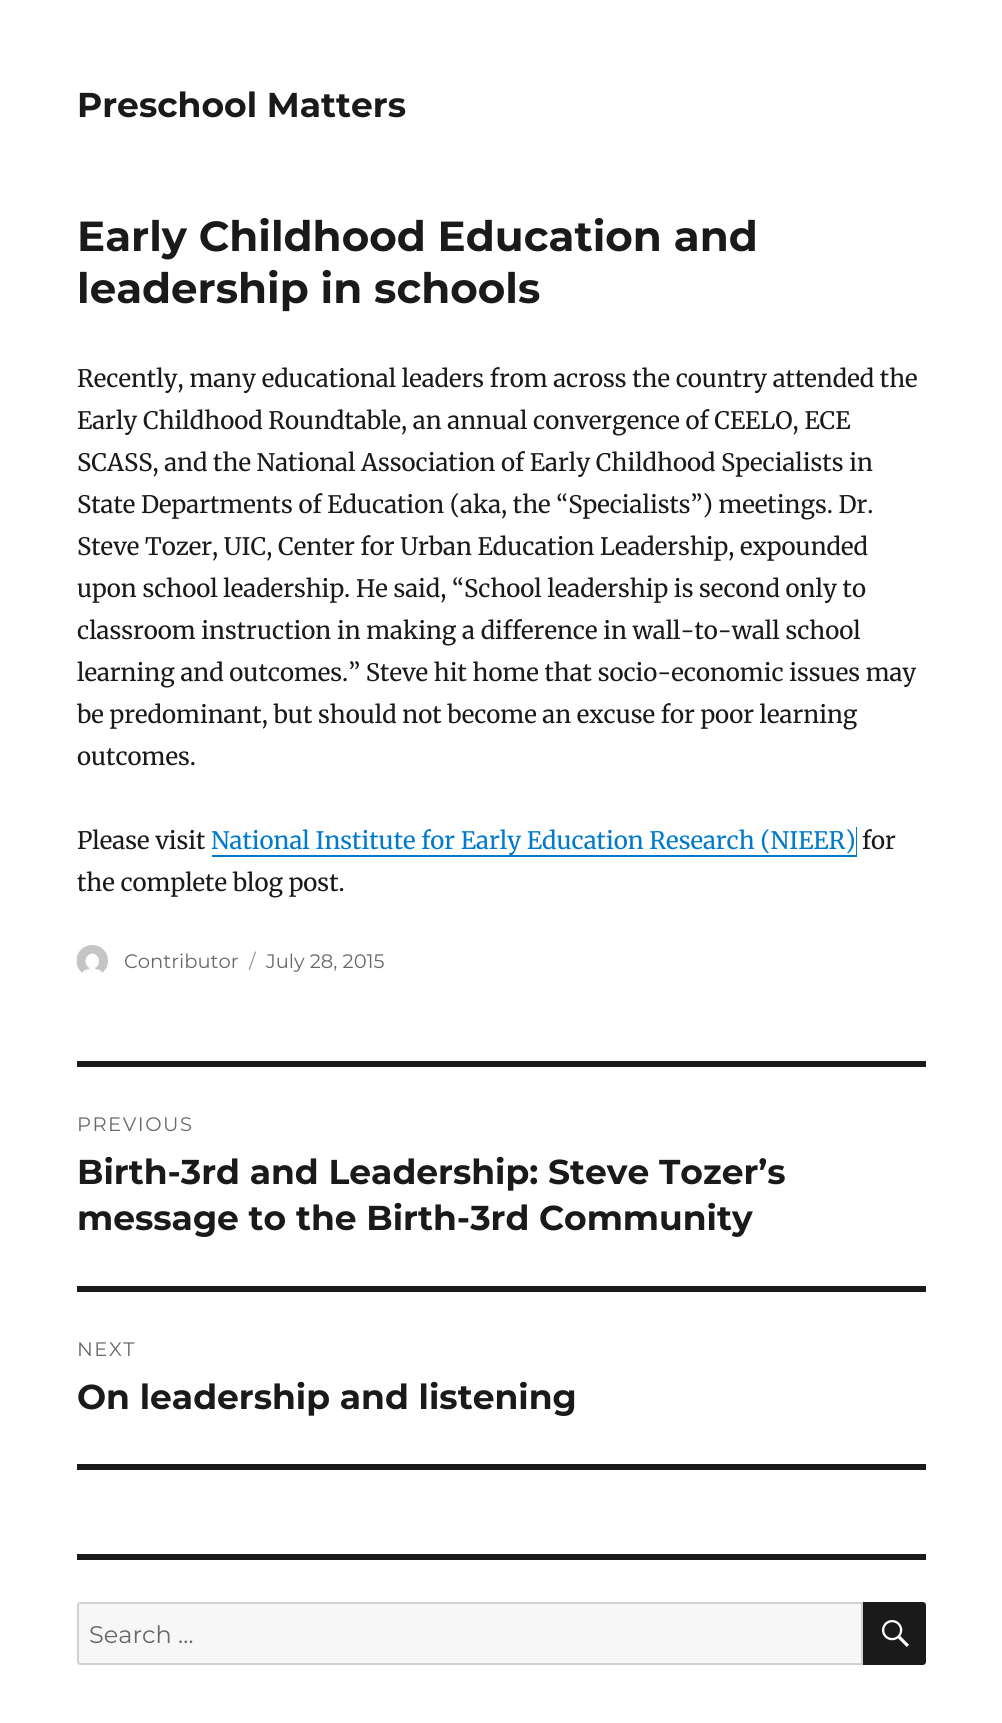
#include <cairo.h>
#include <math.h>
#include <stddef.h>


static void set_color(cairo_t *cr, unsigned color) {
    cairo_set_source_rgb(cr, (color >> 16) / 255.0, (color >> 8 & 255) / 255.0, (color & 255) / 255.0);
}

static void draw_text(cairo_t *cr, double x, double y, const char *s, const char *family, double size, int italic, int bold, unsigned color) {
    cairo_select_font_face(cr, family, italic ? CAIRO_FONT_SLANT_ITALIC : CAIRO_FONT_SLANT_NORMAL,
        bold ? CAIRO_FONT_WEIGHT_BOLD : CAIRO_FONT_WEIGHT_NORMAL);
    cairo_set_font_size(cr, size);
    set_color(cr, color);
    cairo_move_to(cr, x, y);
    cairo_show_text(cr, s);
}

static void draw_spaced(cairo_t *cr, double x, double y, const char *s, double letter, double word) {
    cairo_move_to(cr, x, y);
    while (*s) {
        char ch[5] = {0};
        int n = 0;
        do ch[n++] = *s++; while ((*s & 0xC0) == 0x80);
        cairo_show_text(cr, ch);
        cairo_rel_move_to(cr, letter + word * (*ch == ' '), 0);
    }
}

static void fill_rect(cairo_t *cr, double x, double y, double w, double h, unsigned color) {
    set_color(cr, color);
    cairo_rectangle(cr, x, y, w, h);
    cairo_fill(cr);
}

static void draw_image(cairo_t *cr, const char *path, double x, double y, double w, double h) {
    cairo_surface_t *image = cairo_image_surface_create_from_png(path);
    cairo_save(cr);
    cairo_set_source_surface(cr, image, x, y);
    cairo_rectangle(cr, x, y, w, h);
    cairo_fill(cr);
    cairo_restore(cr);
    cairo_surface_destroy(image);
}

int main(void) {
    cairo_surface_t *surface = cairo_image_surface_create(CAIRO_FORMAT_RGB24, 1002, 1723);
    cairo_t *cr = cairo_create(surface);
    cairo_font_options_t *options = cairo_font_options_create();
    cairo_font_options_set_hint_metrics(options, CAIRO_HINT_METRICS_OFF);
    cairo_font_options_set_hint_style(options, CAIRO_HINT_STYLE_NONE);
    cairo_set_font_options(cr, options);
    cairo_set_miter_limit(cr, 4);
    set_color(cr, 0xFFFFFF);
    cairo_paint(cr);
    draw_text(cr, 77, 117, "Preschool Matters", "Montserrat", 34.5, 0, 1, 0x1A1A1A);
    draw_text(cr, 77, 251, "Early Childhood Education and", "Montserrat", 42, 0, 1, 0x1A1A1A);
    draw_text(cr, 77, 303, "leadership in schools", "Montserrat", 42, 0, 1, 0x1A1A1A);
    draw_text(cr, 77, 387, "Recently, many educational leaders from across the country attended the", "Merriweather", 24, 0, 0, 0x1A1A1A);
    draw_text(cr, 77, 429, "Early Childhood Roundtable, an annual convergence of CEELO, ECE", "Merriweather", 24, 0, 0, 0x1A1A1A);
    draw_text(cr, 77, 471, "SCASS, and the National Association of Early Childhood Specialists in", "Merriweather", 24, 0, 0, 0x1A1A1A);
    draw_text(cr, 77, 513, "State Departments of Education (aka, the “Specialists”) meetings. Dr.", "Merriweather", 24, 0, 0, 0x1A1A1A);
    draw_text(cr, 77, 555, "Steve Tozer, UIC, Center for Urban Education Leadership, expounded", "Merriweather", 24, 0, 0, 0x1A1A1A);
    draw_text(cr, 77, 597, "upon school leadership. He said, “School leadership is second only to", "Merriweather", 24, 0, 0, 0x1A1A1A);
    draw_text(cr, 77, 639, "classroom instruction in making a difference in wall-to-wall school", "Merriweather", 24, 0, 0, 0x1A1A1A);
    draw_text(cr, 77, 681, "learning and outcomes.” Steve hit home that socio-economic issues may", "Merriweather", 24, 0, 0, 0x1A1A1A);
    draw_text(cr, 77, 723, "be predominant, but should not become an excuse for poor learning", "Merriweather", 24, 0, 0, 0x1A1A1A);
    draw_text(cr, 77, 765, "outcomes.", "Merriweather", 24, 0, 0, 0x1A1A1A);
    draw_text(cr, 77, 849, "Please visit", "Merriweather", 24, 0, 0, 0x1A1A1A);
    set_color(cr, 0x007ACC);
    cairo_new_path(cr);
    cairo_move_to(cr, 212, 855);
    cairo_line_to(cr, 212, 857);
    cairo_line_to(cr, 857, 857);
    cairo_line_to(cr, 857, 827);
    cairo_line_to(cr, 856, 827);
    cairo_line_to(cr, 856, 855);
    cairo_close_path(cr);
    cairo_fill(cr);
    draw_text(cr, 211, 849, "National Institute for Early Education Research (NIEER)", "Merriweather", 24, 0, 0, 0x007ACC);
    draw_text(cr, 862, 849, "for", "Merriweather", 24, 0, 0, 0x1A1A1A);
    draw_text(cr, 77, 891, "the complete blog post.", "Merriweather", 24, 0, 0, 0x1A1A1A);
    draw_image(cr, "assets/img1.png", 76, 945, 32, 28);
    draw_text(cr, 124, 968, "Contributor", "Montserrat", 19.5, 0, 0, 0x686868);
    draw_text(cr, 249, 968, "/", "Montserrat", 19.5, 0, 0, 0x959595);
    draw_text(cr, 266, 968, "July 28, 2015", "Montserrat", 19.5, 0, 0, 0x686868);
    fill_rect(cr, 77, 1061, 849, 6, 0x1A1A1A);
    fill_rect(cr, 77, 1464, 849, 6, 0x1A1A1A);
    set_color(cr, 0x686868);
    draw_spaced(cr, 77, 1131, "PREVIOUS", 1.5, 0);
    draw_text(cr, 77, 1184, "Birth-3rd and Leadership: Steve Tozer’s", "Montserrat", 34.5, 0, 1, 0x1A1A1A);
    draw_text(cr, 77, 1230, "message to the Birth-3rd Community", "Montserrat", 34.5, 0, 1, 0x1A1A1A);
    fill_rect(cr, 77, 1286, 849, 6, 0x1A1A1A);
    cairo_select_font_face(cr, "Montserrat", CAIRO_FONT_SLANT_NORMAL, CAIRO_FONT_WEIGHT_NORMAL);
    cairo_set_font_size(cr, 19.5);
    set_color(cr, 0x686868);
    draw_spaced(cr, 77, 1356, "NEXT", 1.5, 0);
    draw_text(cr, 77, 1409, "On leadership and listening", "Montserrat", 34.5, 0, 1, 0x1A1A1A);
    fill_rect(cr, 77, 1554, 849, 6, 0x1A1A1A);
    set_color(cr, 0xF7F7F7);
    cairo_new_path(cr);
    cairo_move_to(cr, 80, 1603);
    cairo_line_to(cr, 862, 1603);
    cairo_line_to(cr, 862, 1664);
    cairo_line_to(cr, 80, 1664);
    cairo_curve_to(cr, 79, 1664, 78, 1663, 78, 1662);
    cairo_line_to(cr, 78, 1605);
    cairo_curve_to(cr, 78, 1604, 79, 1603, 80, 1603);
    cairo_close_path(cr);
    cairo_fill_preserve(cr);
    set_color(cr, 0xD1D1D1);
    cairo_stroke(cr);
    draw_text(cr, 89, 1643, "Search …", "Montserrat", 24, 0, 0, 0x686868);
    set_color(cr, 0x1A1A1A);
    cairo_new_path(cr);
    cairo_move_to(cr, 863, 1602);
    cairo_line_to(cr, 923, 1602);
    cairo_curve_to(cr, 924.5, 1602, 926, 1603.5, 926, 1605);
    cairo_line_to(cr, 926, 1662);
    cairo_curve_to(cr, 926, 1663.5, 924.5, 1665, 923, 1665);
    cairo_line_to(cr, 863, 1665);
    cairo_close_path(cr);
    cairo_fill(cr);
    draw_image(cr, "assets/img2.png", 882, 1620, 27, 27);
    cairo_surface_write_to_png(surface, "output.png");
    cairo_font_options_destroy(options);
    cairo_destroy(cr);
    cairo_surface_destroy(surface);
    return 0;
}
